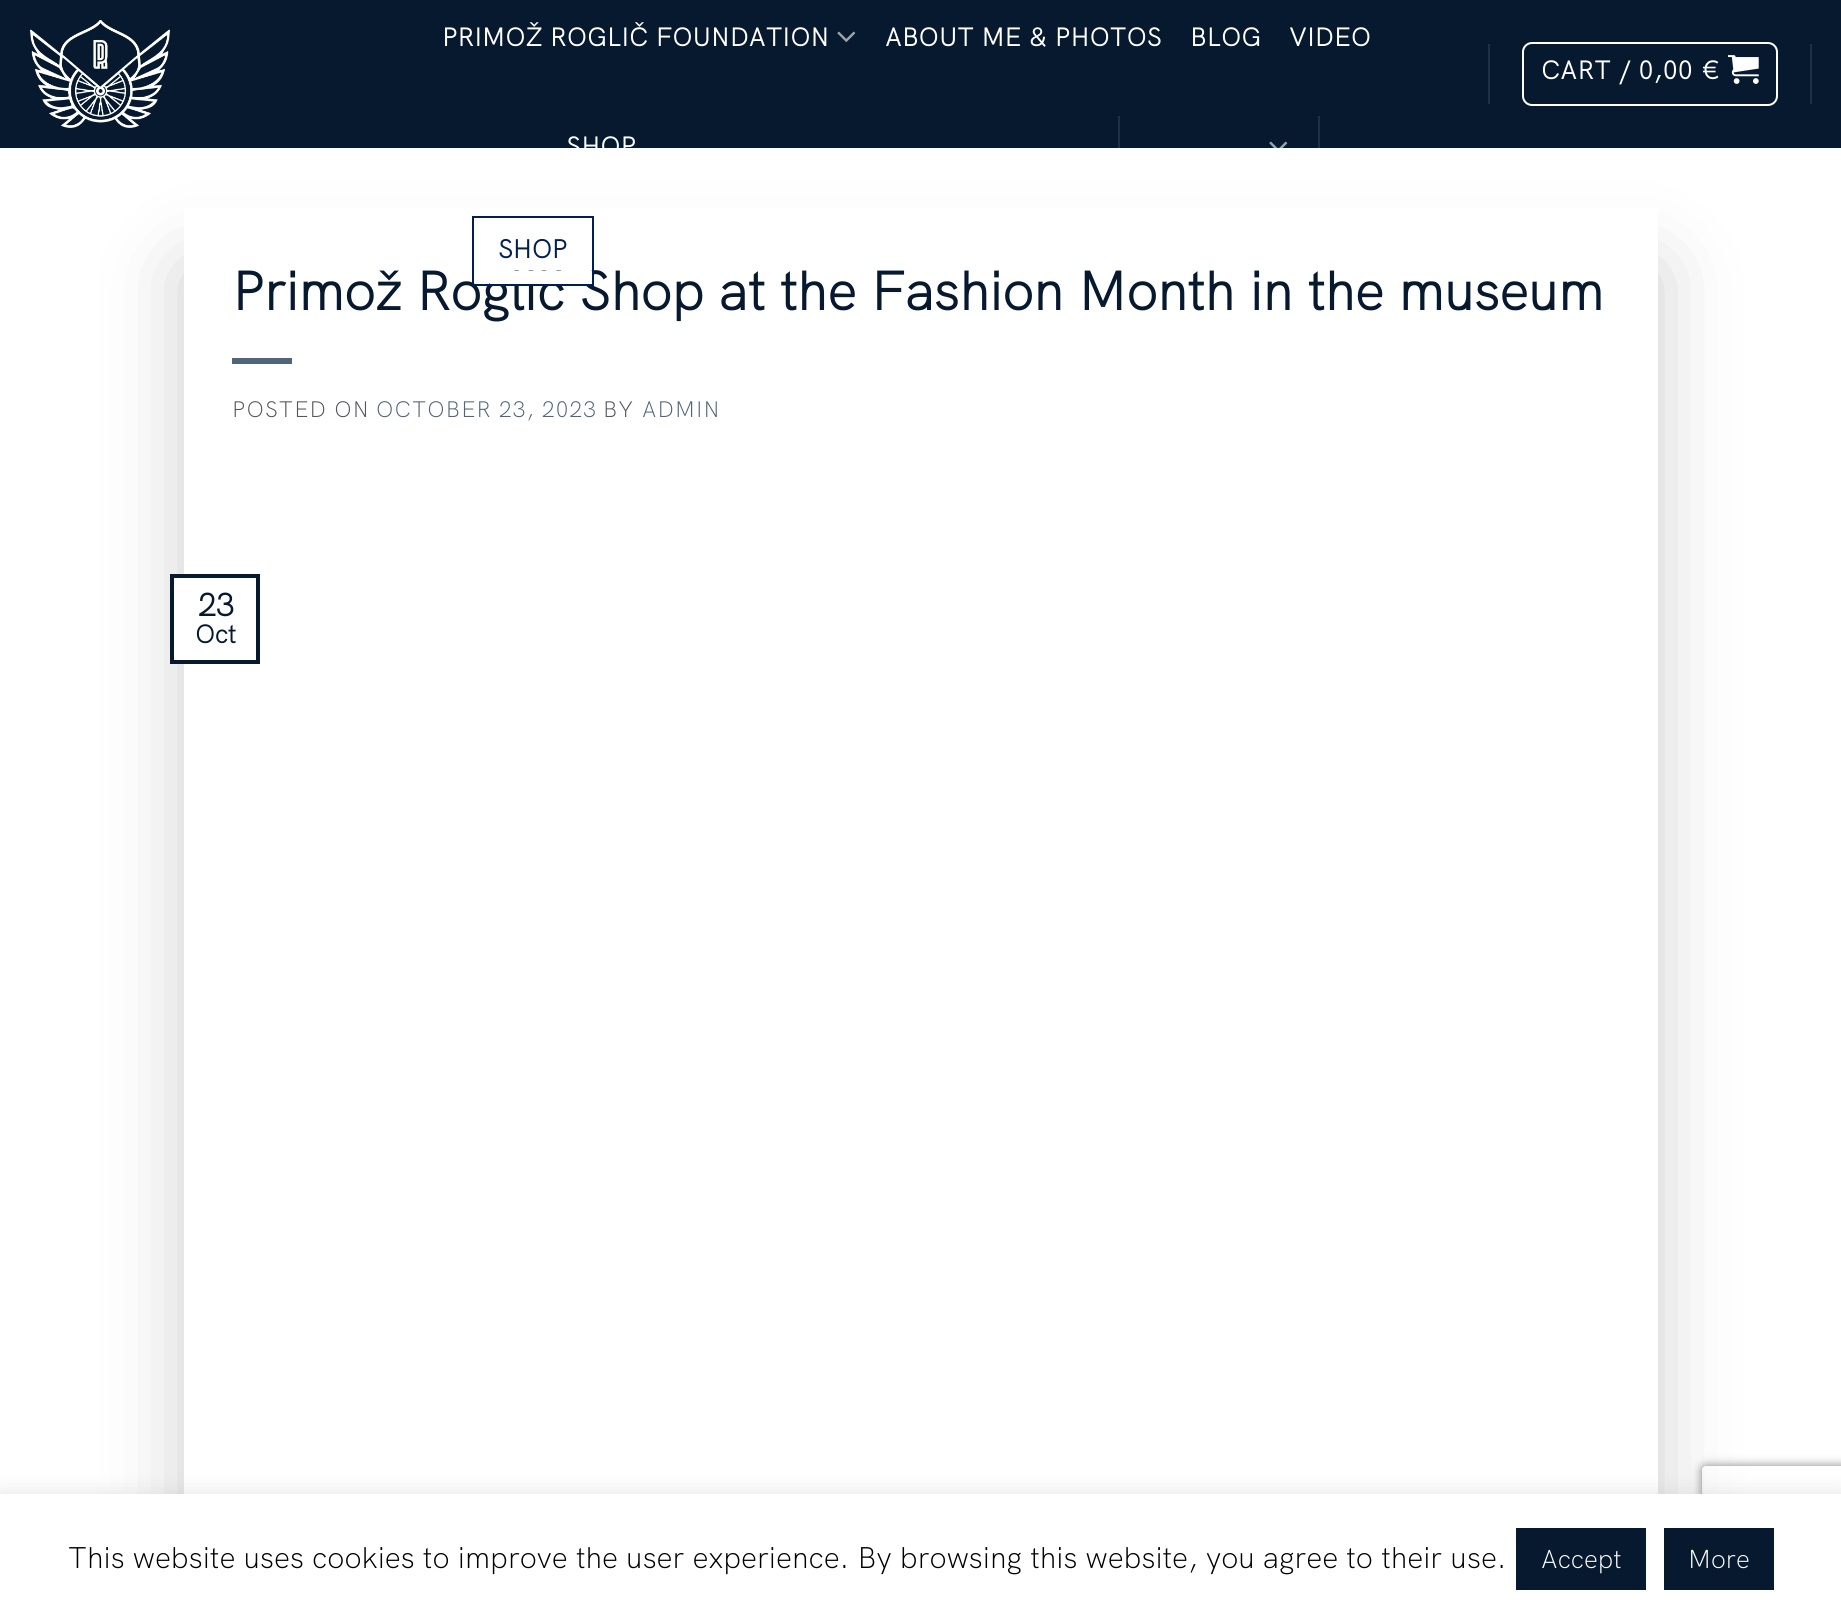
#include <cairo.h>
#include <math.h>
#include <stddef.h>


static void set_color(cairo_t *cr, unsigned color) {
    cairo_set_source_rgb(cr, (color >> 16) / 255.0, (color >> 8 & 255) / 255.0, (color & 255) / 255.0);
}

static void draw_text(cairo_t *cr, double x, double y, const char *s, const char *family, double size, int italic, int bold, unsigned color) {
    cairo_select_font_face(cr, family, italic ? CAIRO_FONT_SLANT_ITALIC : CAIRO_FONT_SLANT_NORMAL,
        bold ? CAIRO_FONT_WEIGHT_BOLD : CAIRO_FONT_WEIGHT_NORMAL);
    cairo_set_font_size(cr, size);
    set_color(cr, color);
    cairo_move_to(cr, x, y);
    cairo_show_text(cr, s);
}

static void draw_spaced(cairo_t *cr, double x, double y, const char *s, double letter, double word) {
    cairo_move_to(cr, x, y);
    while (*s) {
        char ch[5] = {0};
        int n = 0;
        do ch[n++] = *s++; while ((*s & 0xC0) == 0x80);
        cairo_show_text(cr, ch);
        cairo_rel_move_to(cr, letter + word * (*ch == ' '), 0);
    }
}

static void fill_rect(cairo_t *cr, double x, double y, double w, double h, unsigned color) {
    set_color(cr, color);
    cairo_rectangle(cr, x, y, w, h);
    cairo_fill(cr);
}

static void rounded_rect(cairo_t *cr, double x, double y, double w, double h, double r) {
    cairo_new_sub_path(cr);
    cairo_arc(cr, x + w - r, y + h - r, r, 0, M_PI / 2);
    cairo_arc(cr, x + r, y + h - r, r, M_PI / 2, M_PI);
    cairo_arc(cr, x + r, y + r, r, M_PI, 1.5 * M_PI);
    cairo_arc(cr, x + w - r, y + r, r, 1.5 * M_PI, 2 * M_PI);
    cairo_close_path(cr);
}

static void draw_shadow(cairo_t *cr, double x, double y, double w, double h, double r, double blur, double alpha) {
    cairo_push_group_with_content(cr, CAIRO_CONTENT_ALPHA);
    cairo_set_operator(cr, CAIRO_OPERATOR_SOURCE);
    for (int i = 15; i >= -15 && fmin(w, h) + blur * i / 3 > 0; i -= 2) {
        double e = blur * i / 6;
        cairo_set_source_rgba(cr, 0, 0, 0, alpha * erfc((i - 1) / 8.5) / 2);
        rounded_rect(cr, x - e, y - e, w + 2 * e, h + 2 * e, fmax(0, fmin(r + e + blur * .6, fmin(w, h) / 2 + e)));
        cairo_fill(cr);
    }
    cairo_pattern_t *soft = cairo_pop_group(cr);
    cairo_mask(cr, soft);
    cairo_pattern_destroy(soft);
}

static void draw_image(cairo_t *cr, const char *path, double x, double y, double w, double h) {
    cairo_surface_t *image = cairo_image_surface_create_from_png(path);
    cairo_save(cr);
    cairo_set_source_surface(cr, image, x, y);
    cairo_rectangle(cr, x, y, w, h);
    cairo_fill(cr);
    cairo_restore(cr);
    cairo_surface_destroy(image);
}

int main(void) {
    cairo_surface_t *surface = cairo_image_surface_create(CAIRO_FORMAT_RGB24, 1841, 1614);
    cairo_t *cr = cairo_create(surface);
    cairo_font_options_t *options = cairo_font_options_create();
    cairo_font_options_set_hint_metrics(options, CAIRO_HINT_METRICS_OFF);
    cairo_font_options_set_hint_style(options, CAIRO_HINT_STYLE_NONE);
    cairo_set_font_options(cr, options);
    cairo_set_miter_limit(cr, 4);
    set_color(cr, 0xFFFFFF);
    cairo_paint(cr);
    cairo_save(cr);
    cairo_set_fill_rule(cr, CAIRO_FILL_RULE_EVEN_ODD);
    cairo_new_path(cr);
    cairo_move_to(cr, 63, 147);
    cairo_line_to(cr, 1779, 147);
    cairo_line_to(cr, 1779, 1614);
    cairo_line_to(cr, 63, 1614);
    cairo_close_path(cr);
    cairo_move_to(cr, 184, 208);
    cairo_line_to(cr, 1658, 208);
    cairo_line_to(cr, 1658, 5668);
    cairo_line_to(cr, 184, 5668);
    cairo_close_path(cr);
    cairo_clip(cr);
    set_color(cr, 0x000000);
    draw_shadow(cr, 184, 268, 1474, 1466, 0, 40, 0.2);
    cairo_restore(cr);
    fill_rect(cr, 0, 0, 1841, 148, 0x06192E);
    fill_rect(cr, 1318, 116, 2, 32, 0x1F3043);
    fill_rect(cr, 1118, 116, 2, 32, 0x1F3043);
    draw_image(cr, "assets/img1.png", 30, 20, 140, 108);
    cairo_select_font_face(cr, "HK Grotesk", CAIRO_FONT_SLANT_NORMAL, CAIRO_FONT_WEIGHT_BOLD);
    cairo_set_font_size(cr, 25.6);
    set_color(cr, 0xFFFFFF);
    draw_spaced(cr, 442, 46, "PRIMOŽ ROGLIČ FOUNDATION", 0.5, 0);
    draw_image(cr, "assets/img2.png", 837, 31, 19, 11);
    draw_spaced(cr, 885, 46, "ABOUT ME & PHOTOS", 0.5, 0);
    draw_spaced(cr, 1190, 46, "BLOG", 0.5, 0);
    draw_spaced(cr, 1289, 46, "VIDEO", 0.5, 0);
    draw_spaced(cr, 566, 155, "SHOP", 0.5, 0);
    draw_image(cr, "assets/img3.png", 1269, 141, 19, 7);
    draw_text(cr, 232, 310, "Primož Roglič Shop at the Fashion Month in the museum", "HK Grotesk", 54.4, 0, 1, 0x06192E);
    fill_rect(cr, 490, 271, 102, 13, 0xFFFFFF);
    cairo_rectangle(cr, 473, 217, 120, 68);
    set_color(cr, 0x001F54);
    cairo_stroke(cr);
    draw_text(cr, 498, 258, "SHOP", "HK Grotesk", 26, 0, 1, 0x001F54);
    fill_rect(cr, 1488, 44, 2, 60, 0x1F3043);
    rounded_rect(cr, 1523, 43, 254, 62, 9);
    set_color(cr, 0xFFFFFF);
    cairo_stroke(cr);
    cairo_set_font_size(cr, 25.6);
    draw_spaced(cr, 1541, 79, "CART / 0,00 €", 0.75, 0);
    draw_image(cr, "assets/img4.png", 1728, 55, 31, 29);
    fill_rect(cr, 1810, 44, 2, 60, 0x1F3043);
    fill_rect(cr, 232, 358, 60, 6, 0x4E657B);
    cairo_select_font_face(cr, "HK Grotesk Light", CAIRO_FONT_SLANT_NORMAL, CAIRO_FONT_WEIGHT_NORMAL);
    cairo_set_font_size(cr, 22.5);
    set_color(cr, 0x53565A);
    draw_spaced(cr, 232, 417, "POSTED ON", 1.1, 0);
    set_color(cr, 0x4E657B);
    draw_spaced(cr, 376, 417, "OCTOBER 23, 2023", 1.1, 0);
    set_color(cr, 0x53565A);
    draw_spaced(cr, 603, 417, "BY", 1.1, 0);
    set_color(cr, 0x4E657B);
    draw_spaced(cr, 642, 417, "ADMIN", 1.1, 0);
    fill_rect(cr, 174, 578, 10, 82, 0xFFFFFF);
    cairo_rectangle(cr, 172, 576, 86, 86);
    set_color(cr, 0x06192E);
    cairo_set_line_width(cr, 4);
    cairo_stroke(cr);
    draw_text(cr, 198, 616, "23", "HK Grotesk", 32, 0, 1, 0x06192E);
    draw_text(cr, 195, 643, "Oct", "HK Grotesk", 25.6, 0, 1, 0x06192E);
    set_color(cr, 0xACABAB);
    draw_shadow(cr, 0, 1492, 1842, 120, 0, 10, 0.3);
    cairo_save(cr);
    cairo_set_fill_rule(cr, CAIRO_FILL_RULE_EVEN_ODD);
    cairo_new_path(cr);
    cairo_move_to(cr, 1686, 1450);
    cairo_line_to(cr, 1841, 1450);
    cairo_line_to(cr, 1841, 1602);
    cairo_line_to(cr, 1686, 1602);
    cairo_close_path(cr);
    cairo_move_to(cr, 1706, 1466);
    cairo_line_to(cr, 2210, 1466);
    cairo_curve_to(cr, 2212, 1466, 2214, 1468, 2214, 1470);
    cairo_line_to(cr, 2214, 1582);
    cairo_curve_to(cr, 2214, 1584, 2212, 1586, 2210, 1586);
    cairo_line_to(cr, 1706, 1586);
    cairo_curve_to(cr, 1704, 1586, 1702, 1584, 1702, 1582);
    cairo_line_to(cr, 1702, 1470);
    cairo_curve_to(cr, 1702, 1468, 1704, 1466, 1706, 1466);
    cairo_close_path(cr);
    cairo_clip(cr);
    set_color(cr, 0x808080);
    draw_shadow(cr, 1702, 1466, 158, 120, 4, 5, 1);
    cairo_restore(cr);
    fill_rect(cr, 0, 1494, 1841, 120, 0xFFFFFF);
    draw_text(cr, 68, 1568, "This website uses cookies to improve the user experience. By browsing this website, you agree to their use.", "HK Grotesk Light", 30, 0, 0, 0x000000);
    fill_rect(cr, 1516, 1528, 130, 62, 0x06192E);
    draw_text(cr, 1541, 1568, "Accept", "HK Grotesk Light", 26, 0, 0, 0xFFFFFF);
    fill_rect(cr, 1664, 1528, 110, 62, 0x06192E);
    draw_text(cr, 1688, 1568, "More", "HK Grotesk Light", 26, 0, 0, 0xFFFFFF);
    cairo_surface_write_to_png(surface, "output.png");
    cairo_font_options_destroy(options);
    cairo_destroy(cr);
    cairo_surface_destroy(surface);
    return 0;
}
